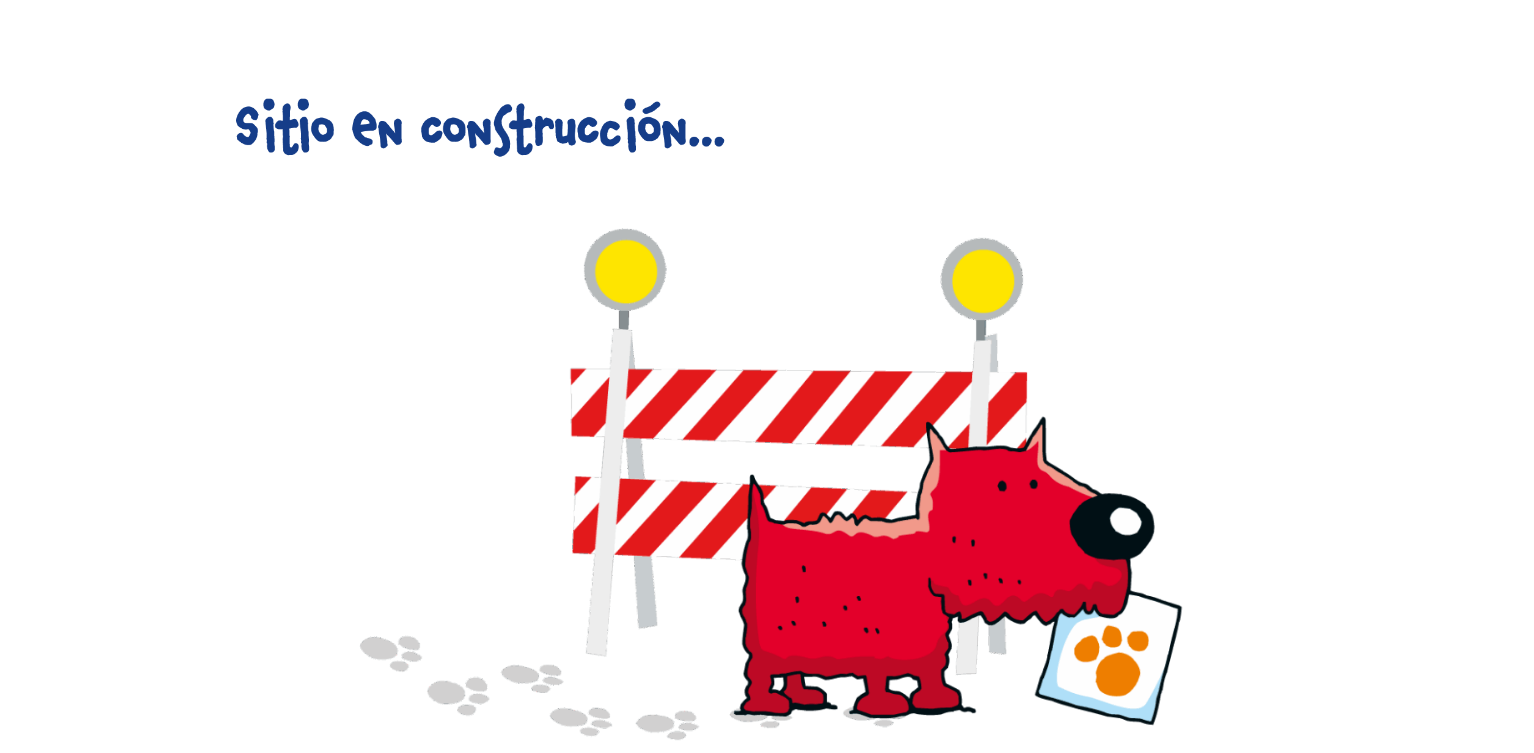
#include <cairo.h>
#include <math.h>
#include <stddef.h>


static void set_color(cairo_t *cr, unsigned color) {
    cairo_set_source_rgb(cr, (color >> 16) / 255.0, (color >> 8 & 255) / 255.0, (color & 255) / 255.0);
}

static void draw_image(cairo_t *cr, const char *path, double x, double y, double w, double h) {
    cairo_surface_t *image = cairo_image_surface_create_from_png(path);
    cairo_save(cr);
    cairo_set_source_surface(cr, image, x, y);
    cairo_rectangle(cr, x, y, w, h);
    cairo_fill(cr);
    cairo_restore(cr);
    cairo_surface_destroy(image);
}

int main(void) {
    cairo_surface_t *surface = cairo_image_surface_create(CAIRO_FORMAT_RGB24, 1534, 753);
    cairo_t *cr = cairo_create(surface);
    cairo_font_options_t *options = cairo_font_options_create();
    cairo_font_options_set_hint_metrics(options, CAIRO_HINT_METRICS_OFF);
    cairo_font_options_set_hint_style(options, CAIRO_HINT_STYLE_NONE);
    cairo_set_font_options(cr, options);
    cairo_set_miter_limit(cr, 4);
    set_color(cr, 0xFFFFFF);
    cairo_paint(cr);
    draw_image(cr, "assets/img1.png", 236, 98, 489, 59);
    draw_image(cr, "assets/img2.png", 359, 228, 824, 513);
    cairo_surface_write_to_png(surface, "output.png");
    cairo_font_options_destroy(options);
    cairo_destroy(cr);
    cairo_surface_destroy(surface);
    return 0;
}
